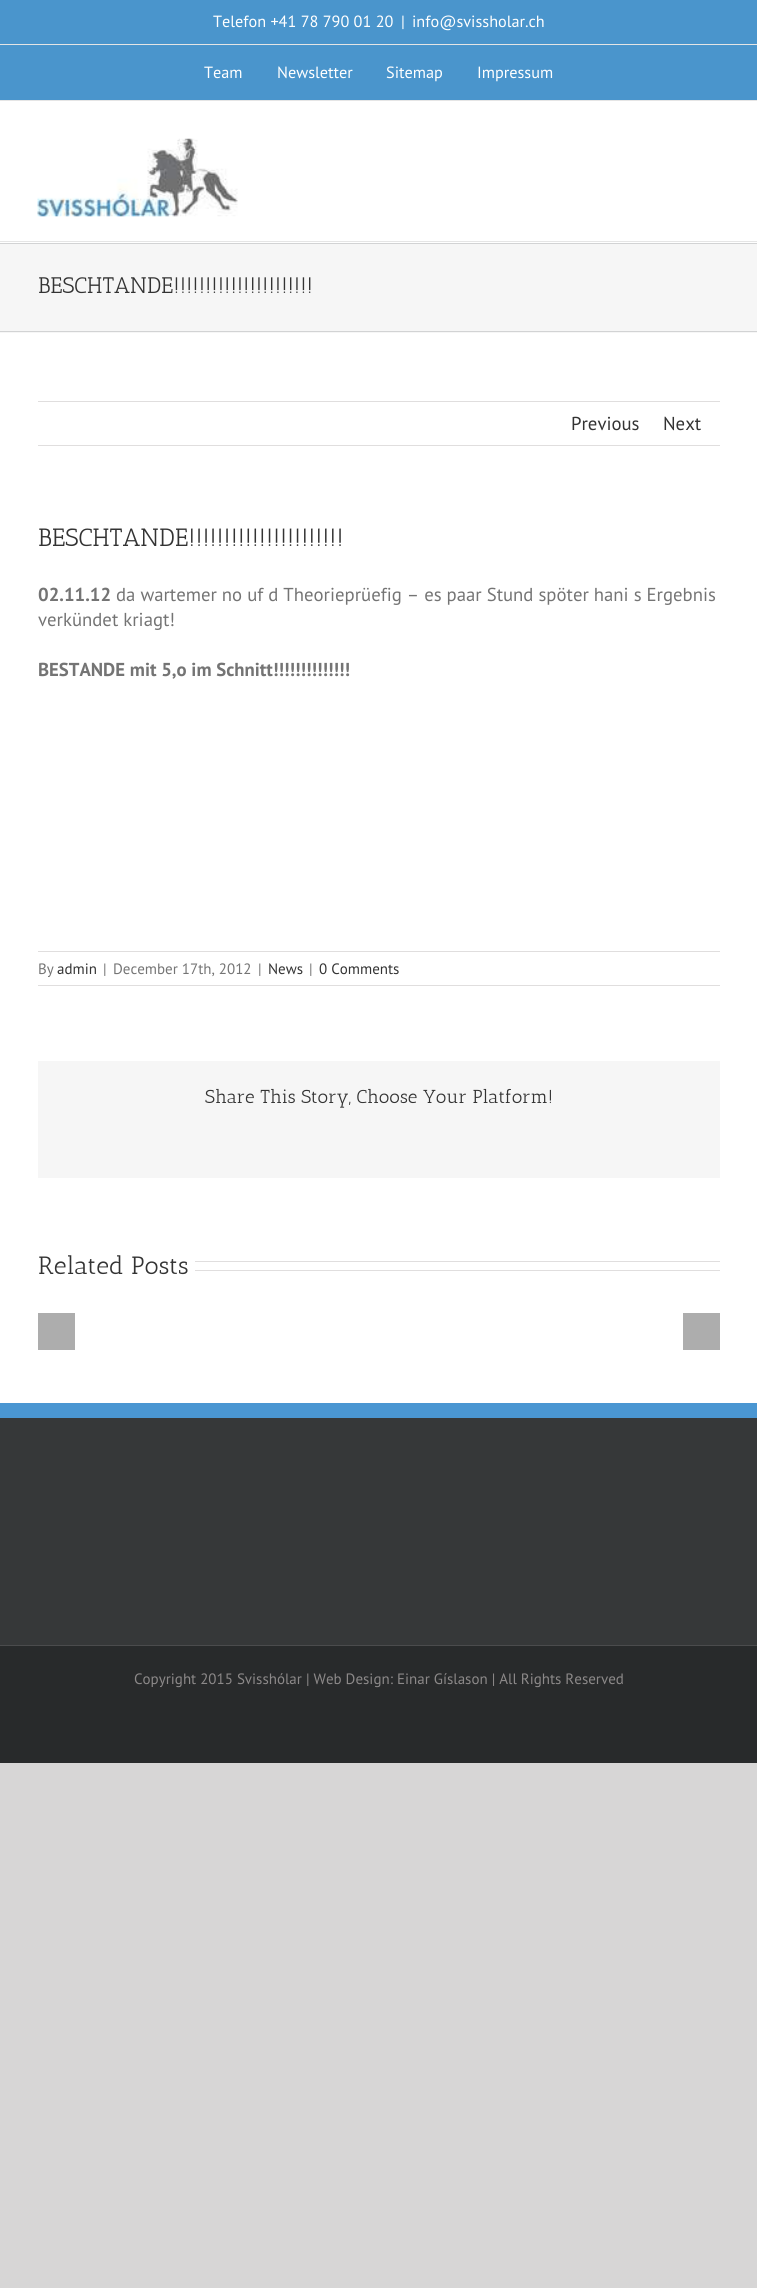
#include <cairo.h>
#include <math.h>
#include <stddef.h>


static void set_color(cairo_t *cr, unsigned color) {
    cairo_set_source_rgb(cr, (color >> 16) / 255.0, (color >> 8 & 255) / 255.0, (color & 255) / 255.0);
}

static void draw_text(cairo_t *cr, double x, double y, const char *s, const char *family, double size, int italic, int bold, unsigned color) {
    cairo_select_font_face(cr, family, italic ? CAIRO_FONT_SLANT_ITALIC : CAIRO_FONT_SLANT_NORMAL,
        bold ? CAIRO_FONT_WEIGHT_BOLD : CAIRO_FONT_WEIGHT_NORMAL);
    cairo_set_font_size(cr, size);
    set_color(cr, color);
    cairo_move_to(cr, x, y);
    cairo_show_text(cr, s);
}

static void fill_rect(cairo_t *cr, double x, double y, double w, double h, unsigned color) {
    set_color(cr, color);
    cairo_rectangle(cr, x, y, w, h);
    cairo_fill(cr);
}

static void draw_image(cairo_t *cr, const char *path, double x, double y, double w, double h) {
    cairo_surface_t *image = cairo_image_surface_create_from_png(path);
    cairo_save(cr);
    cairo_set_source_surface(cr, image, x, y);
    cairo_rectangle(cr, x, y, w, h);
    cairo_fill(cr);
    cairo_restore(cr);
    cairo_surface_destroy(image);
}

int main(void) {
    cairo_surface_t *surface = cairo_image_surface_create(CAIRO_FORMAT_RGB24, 757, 2288);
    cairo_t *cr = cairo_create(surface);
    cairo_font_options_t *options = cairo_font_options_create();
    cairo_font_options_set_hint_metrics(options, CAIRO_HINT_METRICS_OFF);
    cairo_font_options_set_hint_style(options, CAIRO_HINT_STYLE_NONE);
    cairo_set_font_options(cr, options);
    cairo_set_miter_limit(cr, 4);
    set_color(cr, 0xD7D6D6);
    cairo_paint(cr);
    fill_rect(cr, 0, 0, 757, 100, 0x4A95CC);
    fill_rect(cr, 0, 100, 757, 1, 0xE5E5E5);
    fill_rect(cr, 0, 44, 757, 1, 0xE5E5E5);
    draw_text(cr, 213, 27, "Telefon +41 78 790 01 20", "PT Sans", 16.25, 0, 0, 0xFFFFFF);
    draw_text(cr, 401, 27, "|", "PT Sans", 16.25, 0, 0, 0xFFFFFF);
    draw_text(cr, 412, 27, "info@svissholar.ch", "PT Sans", 16.25, 0, 0, 0xFFFFFF);
    draw_text(cr, 204, 78, "Team", "PT Sans", 16.25, 0, 0, 0xFFFFFF);
    draw_text(cr, 277, 78, "Newsletter", "PT Sans", 16.25, 0, 0, 0xFFFFFF);
    draw_text(cr, 386, 78, "Sitemap", "PT Sans", 16.25, 0, 0, 0xFFFFFF);
    draw_text(cr, 477, 78, "Impressum", "PT Sans", 16.25, 0, 0, 0xFFFFFF);
    fill_rect(cr, 0, 101, 757, 142, 0xFFFFFF);
    fill_rect(cr, 0, 241, 757, 1, 0xE5E5E5);
    draw_image(cr, "assets/img1.png", 37, 138, 201, 79);
    fill_rect(cr, 0, 244, 757, 89, 0xF6F6F6);
    fill_rect(cr, 0, 243, 757, 1, 0xD2D3D4);
    fill_rect(cr, 0, 331, 757, 1, 0xD2D3D4);
    draw_text(cr, 38, 293, "BESCHTANDE!!!!!!!!!!!!!!!!!!!!!!", "Antic Slab", 22.5, 0, 0, 0x333333);
    fill_rect(cr, 0, 333, 757, 1070, 0xFFFFFF);
    fill_rect(cr, 38, 401, 682, 1, 0xE0DEDE);
    fill_rect(cr, 38, 445, 682, 1, 0xE0DEDE);
    draw_text(cr, 571, 430, "Previous", "PT Sans", 18.75, 0, 0, 0x333333);
    draw_text(cr, 663, 430, "Next", "PT Sans", 18.75, 0, 0, 0x333333);
    draw_text(cr, 38, 546, "BESCHTANDE!!!!!!!!!!!!!!!!!!!!!!", "Antic Slab", 25, 0, 0, 0x333333);
    draw_text(cr, 38, 601, "02.11.12", "PT Sans", 18.75, 0, 1, 0x747474);
    draw_text(cr, 116, 601, "da wartemer no uf d Theorieprüefig – es paar Stund spöter hani s Ergebnis", "PT Sans", 18.75, 0, 0, 0x747474);
    draw_text(cr, 38, 626, "verkündet kriagt!", "PT Sans", 18.75, 0, 0, 0x747474);
    draw_text(cr, 38, 676, "BESTANDE mit 5,o im Schnitt!!!!!!!!!!!!!!", "PT Sans", 18.75, 0, 1, 0x747474);
    fill_rect(cr, 38, 951, 682, 1, 0xE0DEDE);
    fill_rect(cr, 38, 985, 682, 1, 0xE0DEDE);
    draw_text(cr, 38, 974, "By", "PT Sans", 15, 0, 0, 0x747474);
    draw_text(cr, 57, 974, "admin", "PT Sans", 15, 0, 0, 0x333333);
    draw_text(cr, 103, 974, "|", "PT Sans", 15, 0, 0, 0x747474);
    draw_text(cr, 113, 974, "December 17th, 2012", "PT Sans", 15, 0, 0, 0x747474);
    draw_text(cr, 258, 974, "|", "PT Sans", 15, 0, 0, 0x747474);
    draw_text(cr, 268, 974, "News", "PT Sans", 15, 0, 0, 0x333333);
    draw_text(cr, 309, 974, "|", "PT Sans", 15, 0, 0, 0x747474);
    draw_text(cr, 319, 974, "0 Comments", "PT Sans", 15, 0, 0, 0x333333);
    fill_rect(cr, 38, 1061, 682, 117, 0xF6F6F6);
    draw_text(cr, 205, 1103, "Share This Story, Choose Your Platform!", "Antic Slab", 18.75, 0, 0, 0x333333);
    draw_text(cr, 38, 1274, "Related Posts", "Antic Slab", 25, 0, 0, 0x333333);
    fill_rect(cr, 195, 1261, 525, 1, 0xE0DEDE);
    fill_rect(cr, 195, 1270, 525, 1, 0xE0DEDE);
    fill_rect(cr, 38, 1313, 37, 37, 0xADADAD);
    fill_rect(cr, 683, 1313, 37, 37, 0xADADAD);
    fill_rect(cr, 0, 1418, 757, 227, 0x363839);
    fill_rect(cr, 0, 1403, 757, 15, 0x4A96D2);
    fill_rect(cr, 0, 1646, 757, 117, 0x282A2B);
    fill_rect(cr, 0, 1645, 757, 1, 0x4B4C4D);
    draw_text(cr, 134, 1684, "Copyright 2015 Svisshólar | Web Design: Einar Gíslason | All Rights Reserved", "PT Sans", 15, 0, 0, 0x8C8989);
    cairo_surface_write_to_png(surface, "output.png");
    cairo_font_options_destroy(options);
    cairo_destroy(cr);
    cairo_surface_destroy(surface);
    return 0;
}
